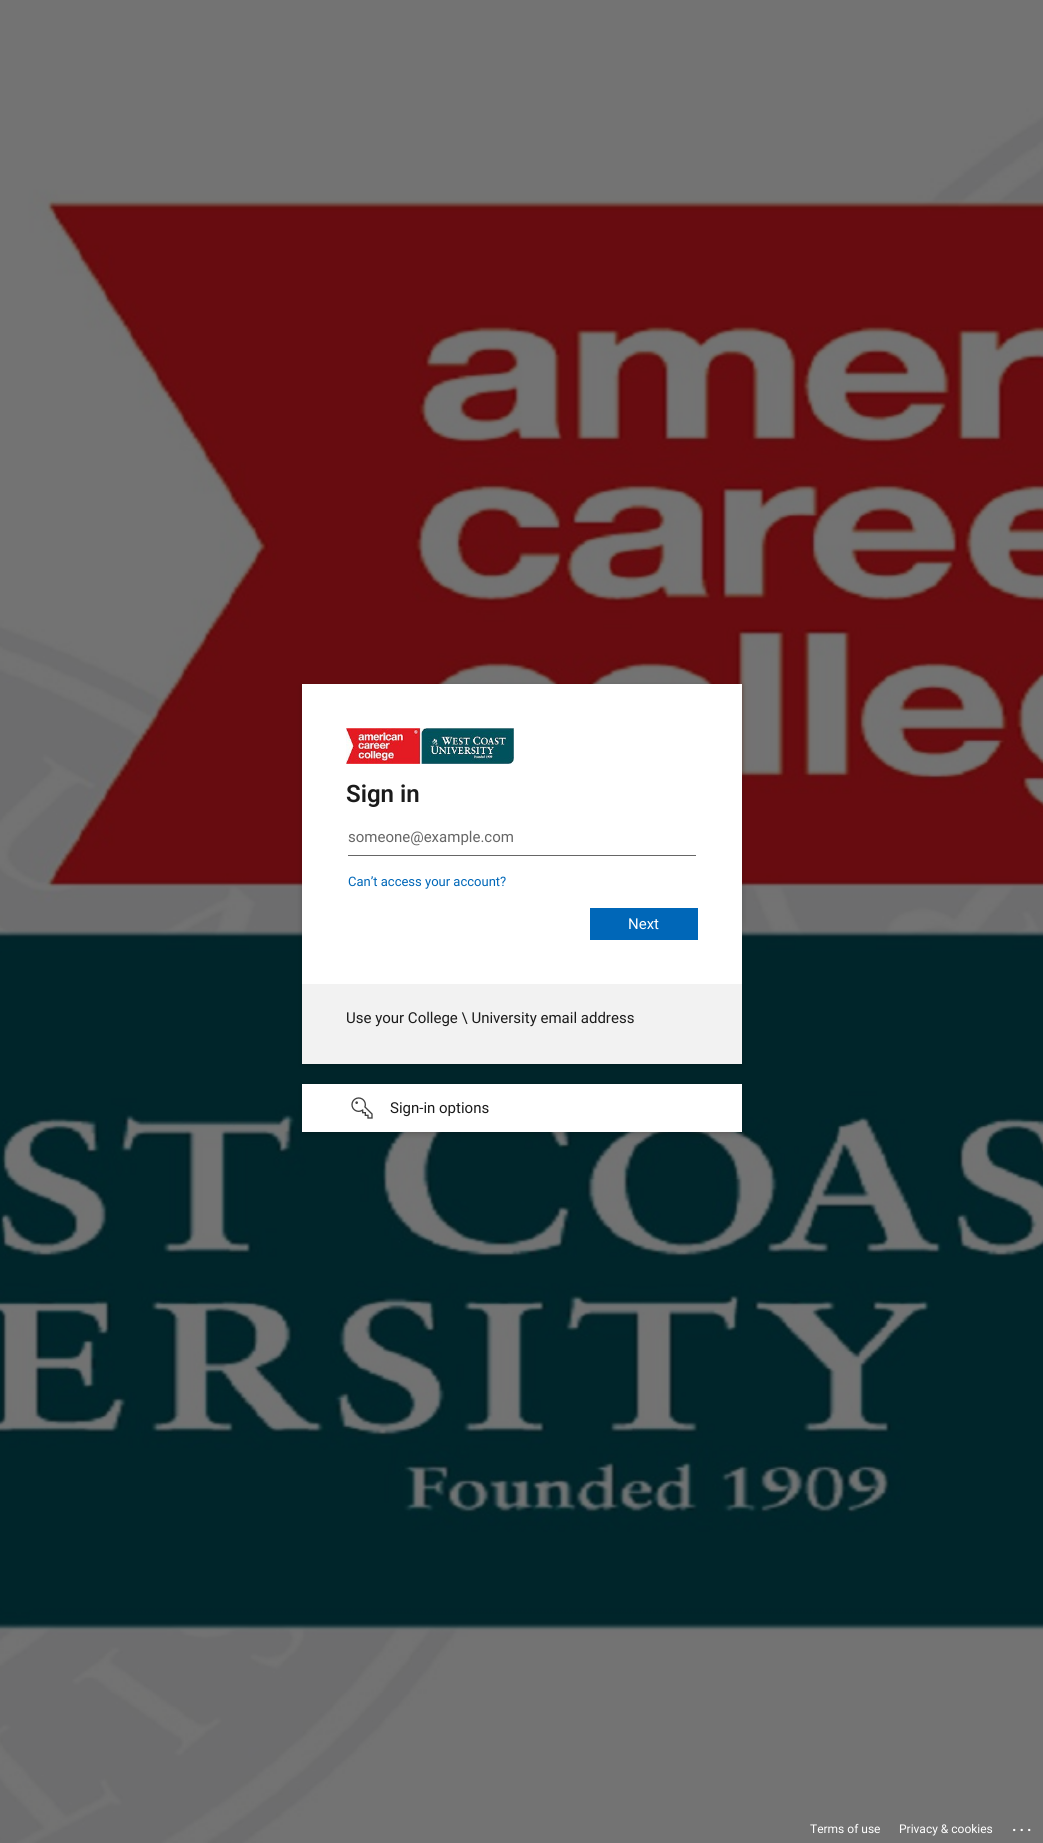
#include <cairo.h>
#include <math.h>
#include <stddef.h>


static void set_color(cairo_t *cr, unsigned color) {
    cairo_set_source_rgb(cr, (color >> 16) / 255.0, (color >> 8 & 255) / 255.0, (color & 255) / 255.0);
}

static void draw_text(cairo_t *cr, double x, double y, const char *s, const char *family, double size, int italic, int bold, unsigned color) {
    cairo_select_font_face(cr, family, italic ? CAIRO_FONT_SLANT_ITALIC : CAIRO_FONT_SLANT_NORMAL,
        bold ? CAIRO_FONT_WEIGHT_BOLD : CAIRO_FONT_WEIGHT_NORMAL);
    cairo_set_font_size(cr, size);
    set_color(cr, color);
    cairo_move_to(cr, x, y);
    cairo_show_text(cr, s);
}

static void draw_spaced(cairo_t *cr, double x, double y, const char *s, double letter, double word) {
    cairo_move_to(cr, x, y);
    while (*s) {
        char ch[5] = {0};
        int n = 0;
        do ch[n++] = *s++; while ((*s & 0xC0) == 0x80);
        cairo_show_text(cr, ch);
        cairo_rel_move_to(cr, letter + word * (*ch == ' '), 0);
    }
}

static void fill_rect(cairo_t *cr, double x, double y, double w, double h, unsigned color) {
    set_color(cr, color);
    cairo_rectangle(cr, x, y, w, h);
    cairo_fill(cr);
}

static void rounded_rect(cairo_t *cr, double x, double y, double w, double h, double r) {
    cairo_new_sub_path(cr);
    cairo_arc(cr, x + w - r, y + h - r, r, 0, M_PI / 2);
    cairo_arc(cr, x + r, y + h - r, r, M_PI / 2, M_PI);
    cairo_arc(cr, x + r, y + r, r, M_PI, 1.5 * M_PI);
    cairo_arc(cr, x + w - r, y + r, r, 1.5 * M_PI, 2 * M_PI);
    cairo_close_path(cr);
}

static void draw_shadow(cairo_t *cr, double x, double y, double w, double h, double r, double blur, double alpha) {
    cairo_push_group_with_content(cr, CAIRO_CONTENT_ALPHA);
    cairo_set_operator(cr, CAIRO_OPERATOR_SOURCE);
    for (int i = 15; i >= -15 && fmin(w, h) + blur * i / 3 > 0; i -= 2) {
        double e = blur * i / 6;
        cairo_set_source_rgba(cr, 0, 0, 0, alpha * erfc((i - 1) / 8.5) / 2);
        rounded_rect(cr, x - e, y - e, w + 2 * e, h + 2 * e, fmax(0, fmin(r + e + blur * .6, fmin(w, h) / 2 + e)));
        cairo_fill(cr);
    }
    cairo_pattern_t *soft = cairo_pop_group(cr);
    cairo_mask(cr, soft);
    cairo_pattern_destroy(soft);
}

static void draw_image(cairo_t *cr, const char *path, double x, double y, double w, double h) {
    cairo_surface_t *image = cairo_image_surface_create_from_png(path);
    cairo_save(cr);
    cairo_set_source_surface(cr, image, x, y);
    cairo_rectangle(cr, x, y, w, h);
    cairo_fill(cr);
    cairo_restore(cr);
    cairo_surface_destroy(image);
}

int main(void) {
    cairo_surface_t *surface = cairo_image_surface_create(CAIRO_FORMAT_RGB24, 1043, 1843);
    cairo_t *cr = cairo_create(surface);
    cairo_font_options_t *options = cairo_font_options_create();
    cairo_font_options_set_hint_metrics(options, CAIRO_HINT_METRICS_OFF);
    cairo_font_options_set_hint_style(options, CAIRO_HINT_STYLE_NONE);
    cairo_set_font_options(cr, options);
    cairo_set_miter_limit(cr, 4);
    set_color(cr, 0xFFFFFF);
    cairo_paint(cr);
    draw_image(cr, "assets/img1.png", 0, 0, 1043, 1843);
    set_color(cr, 0x000000);
    draw_shadow(cr, 302, 686, 440, 380, 0, 3, 0.2);
    fill_rect(cr, 302, 684, 440, 300, 0xFFFFFF);
    draw_image(cr, "assets/img2.png", 346, 728, 168, 36);
    draw_text(cr, 346, 802, "Sign in", "Roboto SemiBold", 24, 0, 0, 0x1B1B1B);
    fill_rect(cr, 348, 855, 348, 1, 0x666666);
    draw_text(cr, 348, 842, "someone@example.com", "Roboto", 15, 0, 0, 0x666666);
    draw_text(cr, 348, 886, "Can’t access your account?", "Roboto", 13, 0, 0, 0x0067B8);
    fill_rect(cr, 590, 908, 108, 32, 0x0067B8);
    draw_text(cr, 628, 929, "Next", "Roboto", 15, 0, 0, 0xFFFFFF);
    fill_rect(cr, 302, 984, 440, 80, 0xF2F2F2);
    draw_text(cr, 346, 1023, "Use your College \\ University email address", "Roboto", 15, 0, 0, 0x1B1B1B);
    set_color(cr, 0x000000);
    draw_shadow(cr, 302, 1086, 440, 48, 0, 3, 0.2);
    fill_rect(cr, 302, 1084, 440, 48, 0xFFFFFF);
    draw_image(cr, "assets/img3.png", 351, 1097, 22, 22);
    draw_text(cr, 390, 1113, "Sign-in options", "Roboto", 15, 0, 0, 0x1B1B1B);
    draw_text(cr, 810, 1833, "Terms of use", "Roboto", 12, 0, 0, 0xFFFFFF);
    draw_text(cr, 899, 1833, "Privacy & cookies", "Roboto", 12, 0, 0, 0xFFFFFF);
    cairo_select_font_face(cr, "Roboto SemiBold", CAIRO_FONT_SLANT_NORMAL, CAIRO_FONT_WEIGHT_NORMAL);
    cairo_set_font_size(cr, 16);
    draw_spaced(cr, 1012, 1831, "...", 3, 0);
    cairo_surface_write_to_png(surface, "output.png");
    cairo_font_options_destroy(options);
    cairo_destroy(cr);
    cairo_surface_destroy(surface);
    return 0;
}
